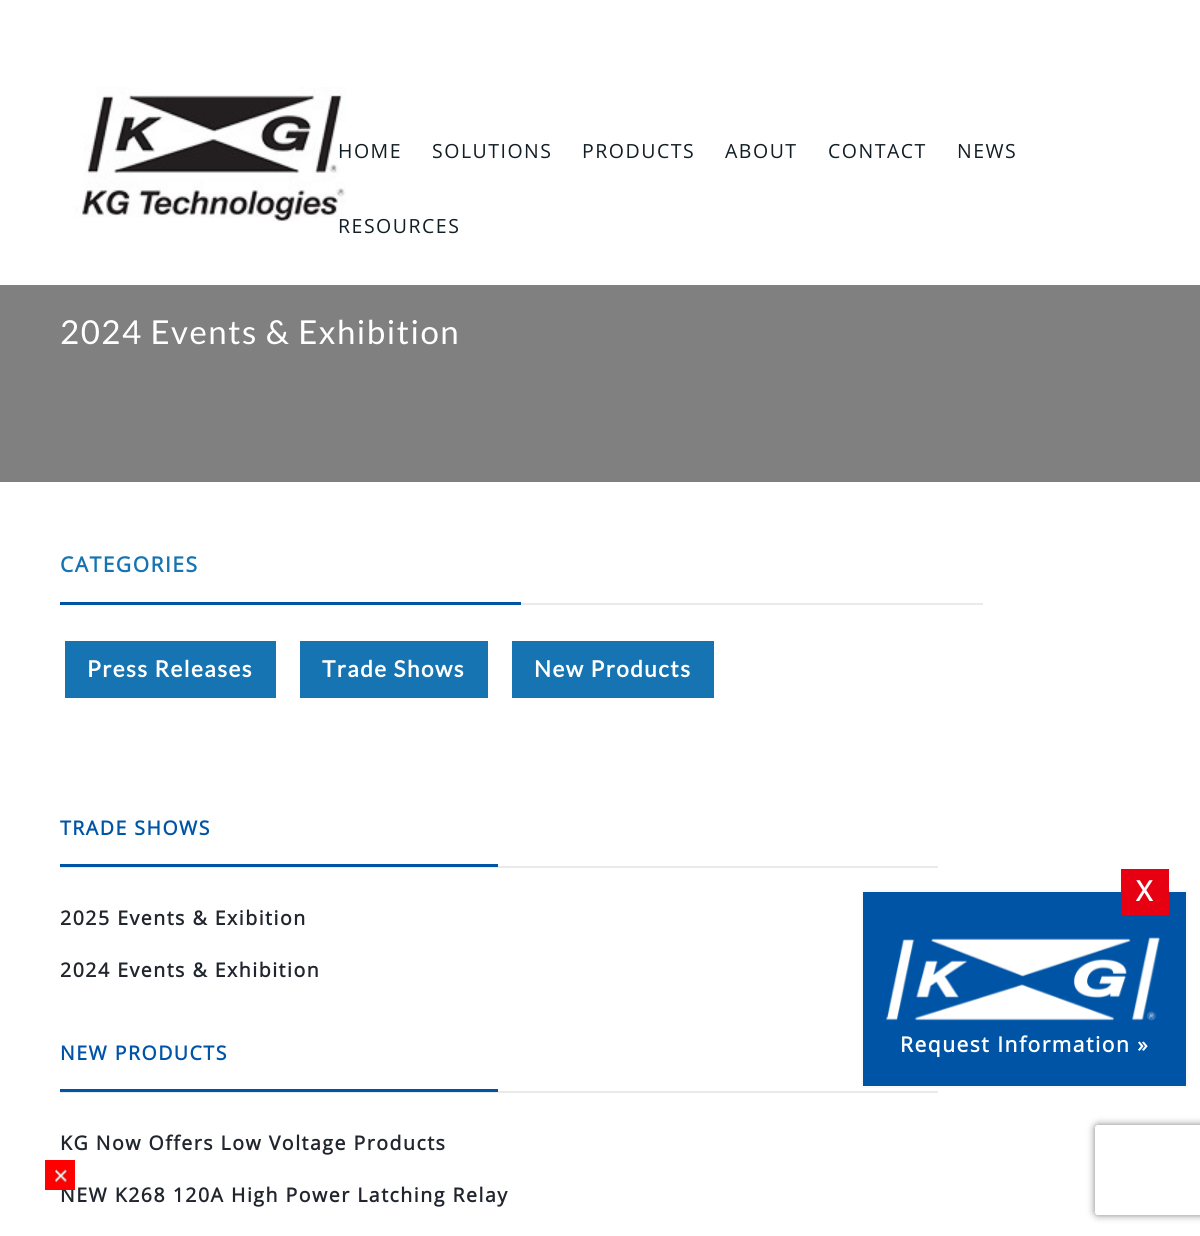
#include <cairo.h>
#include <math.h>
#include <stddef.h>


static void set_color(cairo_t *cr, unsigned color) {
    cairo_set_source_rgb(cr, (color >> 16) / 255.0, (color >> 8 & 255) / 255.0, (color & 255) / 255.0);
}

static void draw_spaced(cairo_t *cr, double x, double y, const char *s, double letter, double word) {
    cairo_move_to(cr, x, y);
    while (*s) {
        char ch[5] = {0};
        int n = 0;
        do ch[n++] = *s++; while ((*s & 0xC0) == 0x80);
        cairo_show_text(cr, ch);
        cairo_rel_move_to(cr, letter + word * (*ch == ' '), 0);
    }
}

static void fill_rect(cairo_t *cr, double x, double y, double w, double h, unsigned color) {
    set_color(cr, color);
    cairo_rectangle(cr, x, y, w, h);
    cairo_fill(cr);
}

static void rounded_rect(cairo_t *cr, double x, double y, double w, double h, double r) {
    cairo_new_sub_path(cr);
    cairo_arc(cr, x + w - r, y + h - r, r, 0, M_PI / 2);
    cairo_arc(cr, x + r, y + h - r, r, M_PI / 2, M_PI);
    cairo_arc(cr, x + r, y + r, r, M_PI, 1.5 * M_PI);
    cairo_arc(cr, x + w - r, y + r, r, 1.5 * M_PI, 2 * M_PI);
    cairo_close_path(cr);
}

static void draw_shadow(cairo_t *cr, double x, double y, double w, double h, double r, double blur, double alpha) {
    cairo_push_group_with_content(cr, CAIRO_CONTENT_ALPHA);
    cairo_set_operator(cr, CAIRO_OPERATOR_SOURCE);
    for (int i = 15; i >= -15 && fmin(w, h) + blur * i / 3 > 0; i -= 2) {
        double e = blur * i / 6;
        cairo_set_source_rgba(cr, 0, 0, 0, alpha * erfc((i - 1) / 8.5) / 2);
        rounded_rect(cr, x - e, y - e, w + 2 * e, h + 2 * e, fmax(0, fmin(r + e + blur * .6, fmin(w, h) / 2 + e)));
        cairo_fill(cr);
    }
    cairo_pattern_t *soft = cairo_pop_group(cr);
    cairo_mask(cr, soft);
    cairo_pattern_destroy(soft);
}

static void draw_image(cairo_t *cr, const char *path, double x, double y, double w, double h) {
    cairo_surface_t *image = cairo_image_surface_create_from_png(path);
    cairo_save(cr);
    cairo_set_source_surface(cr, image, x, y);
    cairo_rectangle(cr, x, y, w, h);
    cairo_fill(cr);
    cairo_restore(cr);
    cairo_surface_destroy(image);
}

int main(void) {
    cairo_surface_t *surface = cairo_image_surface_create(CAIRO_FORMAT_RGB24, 1200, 1236);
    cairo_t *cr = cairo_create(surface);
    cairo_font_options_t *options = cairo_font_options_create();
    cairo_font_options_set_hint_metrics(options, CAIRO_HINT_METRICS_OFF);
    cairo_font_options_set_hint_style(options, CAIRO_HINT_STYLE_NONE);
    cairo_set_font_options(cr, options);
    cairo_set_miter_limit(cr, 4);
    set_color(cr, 0xFFFFFF);
    cairo_paint(cr);
    draw_image(cr, "assets/img1.png", 74, 87, 272, 135);
    cairo_select_font_face(cr, "Open Sans", CAIRO_FONT_SLANT_NORMAL, CAIRO_FONT_WEIGHT_NORMAL);
    cairo_set_font_size(cr, 19.5);
    set_color(cr, 0x121E25);
    draw_spaced(cr, 338, 158, "HOME", 1.5, 0);
    draw_spaced(cr, 432, 158, "SOLUTIONS", 1.5, 0);
    draw_spaced(cr, 582, 158, "PRODUCTS", 1.5, 0);
    draw_spaced(cr, 725, 158, "ABOUT", 1.5, 0);
    draw_spaced(cr, 828, 158, "CONTACT", 1.5, 0);
    draw_spaced(cr, 957, 158, "NEWS", 1.5, 0);
    draw_spaced(cr, 338, 233, "RESOURCES", 1.5, 0);
    fill_rect(cr, 0, 285, 1200, 197, 0x808080);
    cairo_select_font_face(cr, "Lato", CAIRO_FONT_SLANT_NORMAL, CAIRO_FONT_WEIGHT_NORMAL);
    cairo_set_font_size(cr, 33);
    set_color(cr, 0xFFFFFF);
    draw_spaced(cr, 60, 344, "2024 Events & Exhibition", 1.5, 0);
    cairo_select_font_face(cr, "Open Sans", CAIRO_FONT_SLANT_NORMAL, CAIRO_FONT_WEIGHT_BOLD);
    cairo_set_font_size(cr, 21);
    set_color(cr, 0x1574B1);
    draw_spaced(cr, 60, 572, "CATEGORIES", 1.5, 0);
    fill_rect(cr, 521, 603, 462, 2, 0xEAEAEB);
    fill_rect(cr, 60, 602, 461, 3, 0x0054A6);
    fill_rect(cr, 65, 641, 211, 57, 0x1574B1);
    cairo_select_font_face(cr, "Lato", CAIRO_FONT_SLANT_NORMAL, CAIRO_FONT_WEIGHT_BOLD);
    cairo_set_font_size(cr, 22.5);
    set_color(cr, 0xFFFFFF);
    draw_spaced(cr, 87, 677, "Press Releases", 1.5, 0);
    fill_rect(cr, 300, 641, 188, 57, 0x1574B1);
    set_color(cr, 0xFFFFFF);
    draw_spaced(cr, 322, 677, "Trade Shows", 1.5, 0);
    fill_rect(cr, 512, 641, 202, 57, 0x1574B1);
    set_color(cr, 0xFFFFFF);
    draw_spaced(cr, 534, 677, "New Products", 1.5, 0);
    cairo_select_font_face(cr, "Open Sans", CAIRO_FONT_SLANT_NORMAL, CAIRO_FONT_WEIGHT_BOLD);
    cairo_set_font_size(cr, 19.5);
    set_color(cr, 0x0054A6);
    draw_spaced(cr, 60, 835, "TRADE SHOWS", 1.5, 0);
    fill_rect(cr, 60, 866, 878, 2, 0xEAEAEB);
    fill_rect(cr, 60, 864, 438, 3, 0x0054A6);
    set_color(cr, 0x21252E);
    draw_spaced(cr, 60, 925, "2025 Events & Exibition", 1.5, 0);
    draw_spaced(cr, 60, 977, "2024 Events & Exhibition", 1.5, 0);
    set_color(cr, 0x0054A6);
    draw_spaced(cr, 60, 1060, "NEW PRODUCTS", 1.5, 0);
    fill_rect(cr, 60, 1091, 878, 2, 0xEAEAEB);
    fill_rect(cr, 60, 1089, 438, 3, 0x0054A6);
    set_color(cr, 0x21252E);
    draw_spaced(cr, 60, 1150, "KG Now Offers Low Voltage Products", 1.5, 0);
    draw_spaced(cr, 60, 1202, "NEW K268 120A High Power Latching Relay", 1.5, 0);
    set_color(cr, 0x0054A6);
    cairo_rectangle(cr, 862, 891, 325, 196);
    cairo_fill_preserve(cr);
    set_color(cr, 0xF9F9F9);
    cairo_stroke(cr);
    fill_rect(cr, 1121, 869, 48, 46, 0xE60012);
    cairo_set_font_size(cr, 28);
    set_color(cr, 0xFFFFFF);
    draw_spaced(cr, 1136, 901, "X", 1.5, 0);
    draw_image(cr, "assets/img2.png", 886, 937, 274, 84);
    cairo_set_font_size(cr, 21);
    draw_spaced(cr, 900, 1052, "Request Information »", 1.5, 0);
    fill_rect(cr, 45, 1160, 30, 30, 0xFF0000);
    draw_image(cr, "assets/img3.png", 54, 1169, 14, 14);
    cairo_save(cr);
    cairo_set_fill_rule(cr, CAIRO_FILL_RULE_EVEN_ODD);
    cairo_new_path(cr);
    cairo_move_to(cr, 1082, 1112);
    cairo_line_to(cr, 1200, 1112);
    cairo_line_to(cr, 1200, 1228);
    cairo_line_to(cr, 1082, 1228);
    cairo_close_path(cr);
    cairo_move_to(cr, 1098, 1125);
    cairo_line_to(cr, 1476, 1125);
    cairo_curve_to(cr, 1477.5, 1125, 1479, 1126.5, 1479, 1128);
    cairo_line_to(cr, 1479, 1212);
    cairo_curve_to(cr, 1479, 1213.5, 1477.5, 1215, 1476, 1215);
    cairo_line_to(cr, 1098, 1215);
    cairo_curve_to(cr, 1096.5, 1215, 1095, 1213.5, 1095, 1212);
    cairo_line_to(cr, 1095, 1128);
    cairo_curve_to(cr, 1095, 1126.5, 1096.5, 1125, 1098, 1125);
    cairo_close_path(cr);
    cairo_clip(cr);
    set_color(cr, 0x808080);
    draw_shadow(cr, 1095, 1125, 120, 90, 3, 4, 1);
    cairo_restore(cr);
    cairo_surface_write_to_png(surface, "output.png");
    cairo_font_options_destroy(options);
    cairo_destroy(cr);
    cairo_surface_destroy(surface);
    return 0;
}
